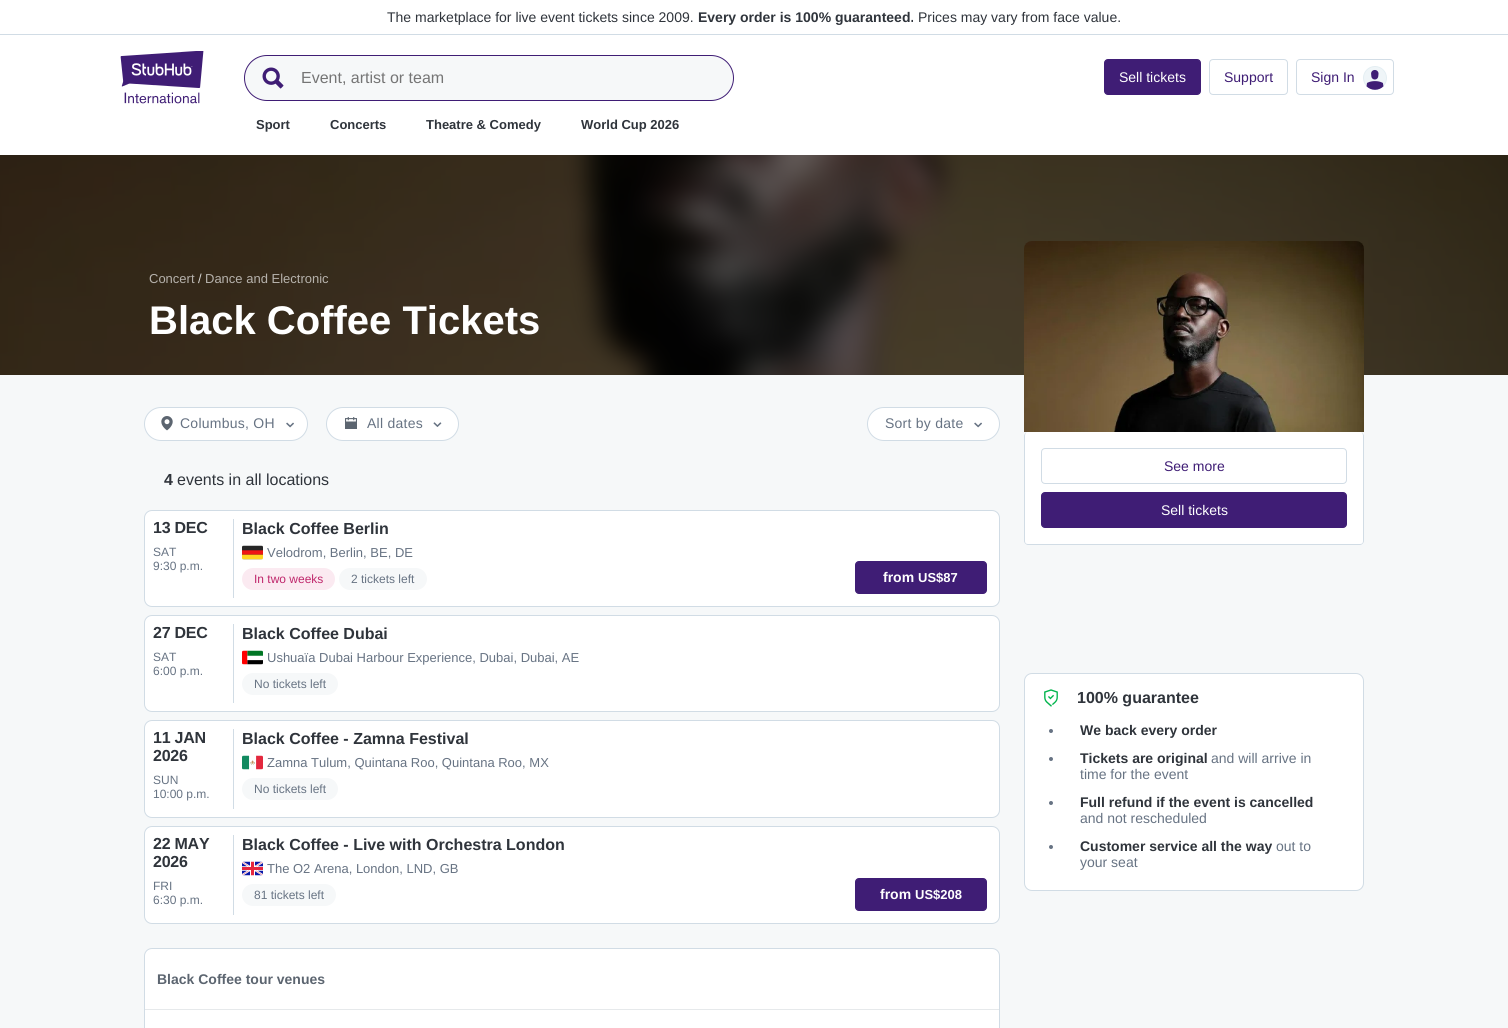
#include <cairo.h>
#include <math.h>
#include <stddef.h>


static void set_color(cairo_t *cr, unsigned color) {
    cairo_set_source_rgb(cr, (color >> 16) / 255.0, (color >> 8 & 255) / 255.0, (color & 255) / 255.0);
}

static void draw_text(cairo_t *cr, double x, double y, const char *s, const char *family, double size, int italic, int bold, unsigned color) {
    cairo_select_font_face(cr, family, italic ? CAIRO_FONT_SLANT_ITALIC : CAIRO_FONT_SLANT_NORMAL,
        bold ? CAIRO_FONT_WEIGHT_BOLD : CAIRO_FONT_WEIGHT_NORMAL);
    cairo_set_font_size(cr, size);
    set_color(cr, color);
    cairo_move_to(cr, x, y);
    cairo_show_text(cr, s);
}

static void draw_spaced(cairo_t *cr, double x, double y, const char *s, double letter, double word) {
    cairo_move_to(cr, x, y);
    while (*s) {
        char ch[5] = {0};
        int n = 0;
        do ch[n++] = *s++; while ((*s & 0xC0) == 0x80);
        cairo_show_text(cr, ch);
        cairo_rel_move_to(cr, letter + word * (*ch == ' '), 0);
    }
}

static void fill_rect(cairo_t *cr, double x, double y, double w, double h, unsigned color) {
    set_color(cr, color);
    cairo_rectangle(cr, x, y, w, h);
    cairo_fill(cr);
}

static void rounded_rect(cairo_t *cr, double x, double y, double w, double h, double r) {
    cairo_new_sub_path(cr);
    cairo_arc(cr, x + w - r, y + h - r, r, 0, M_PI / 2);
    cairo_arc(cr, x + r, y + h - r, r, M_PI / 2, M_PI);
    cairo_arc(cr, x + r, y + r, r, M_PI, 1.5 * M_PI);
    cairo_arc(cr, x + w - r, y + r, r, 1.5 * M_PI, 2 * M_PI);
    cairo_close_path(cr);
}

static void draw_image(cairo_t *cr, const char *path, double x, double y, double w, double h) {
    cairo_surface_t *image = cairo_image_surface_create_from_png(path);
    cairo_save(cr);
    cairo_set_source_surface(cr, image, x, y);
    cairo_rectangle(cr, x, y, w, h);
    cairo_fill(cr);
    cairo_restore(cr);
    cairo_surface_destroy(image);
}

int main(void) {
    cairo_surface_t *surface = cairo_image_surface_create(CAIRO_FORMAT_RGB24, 1508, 1028);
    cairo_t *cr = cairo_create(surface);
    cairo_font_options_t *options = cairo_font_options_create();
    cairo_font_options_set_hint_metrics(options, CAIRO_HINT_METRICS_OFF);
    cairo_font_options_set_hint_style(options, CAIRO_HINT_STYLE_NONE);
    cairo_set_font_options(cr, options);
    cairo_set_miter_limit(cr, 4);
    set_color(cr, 0xF6F8F9);
    cairo_paint(cr);
    fill_rect(cr, 0, 0, 1508, 155, 0xFFFFFF);
    fill_rect(cr, 0, 34, 1508, 1, 0xD1DCE5);
    draw_text(cr, 387, 22, "The marketplace for live event tickets since 2009.", "Liberation Sans", 14, 0, 0, 0x2F343B);
    draw_text(cr, 698, 22, "Every order is 100% guaranteed.", "Liberation Sans", 14, 0, 1, 0x2F343B);
    draw_text(cr, 918, 22, "Prices may vary from face value.", "Liberation Sans", 14, 0, 0, 0x2F343B);
    set_color(cr, 0xF6F8F9);
    rounded_rect(cr, 244.5, 55.5, 489, 45, 22.5);
    cairo_fill_preserve(cr);
    set_color(cr, 0x3F1D75);
    cairo_set_line_width(cr, 1);
    cairo_stroke(cr);
    draw_image(cr, "assets/img1.png", 262, 67, 22, 22);
    draw_text(cr, 301, 83, "Event, artist or team", "Liberation Sans", 16, 0, 0, 0x757575);
    draw_image(cr, "assets/img2.png", 120, 51, 84, 53);
    set_color(cr, 0x3F1D75);
    rounded_rect(cr, 1104.5, 59.5, 96, 35, 3.5);
    cairo_fill_preserve(cr);
    cairo_stroke(cr);
    draw_text(cr, 1119, 82, "Sell tickets", "Liberation Sans", 14, 0, 0, 0xFFFFFF);
    rounded_rect(cr, 1209.5, 59.5, 78, 35, 3.5);
    set_color(cr, 0xD1DCE5);
    cairo_stroke(cr);
    draw_text(cr, 1224, 82, "Support", "Liberation Sans", 14, 0, 0, 0x3F1D75);
    rounded_rect(cr, 1296.5, 59.5, 97, 35, 3.5);
    set_color(cr, 0xD1DCE5);
    cairo_stroke(cr);
    draw_text(cr, 1311, 82, "Sign In", "Liberation Sans", 14, 0, 0, 0x3F1D75);
    draw_image(cr, "assets/img3.png", 1363, 66, 24, 24);
    draw_text(cr, 256, 129, "Sport", "Liberation Sans", 13, 0, 1, 0x2F343B);
    draw_text(cr, 330, 129, "Concerts", "Liberation Sans", 13, 0, 1, 0x2F343B);
    draw_text(cr, 426, 129, "Theatre & Comedy", "Liberation Sans", 13, 0, 1, 0x2F343B);
    draw_text(cr, 581, 129, "World Cup 2026", "Liberation Sans", 13, 0, 1, 0x2F343B);
    draw_image(cr, "assets/img4.png", 0, 155, 1508, 220);
    draw_text(cr, 149, 283, "Concert", "Liberation Sans", 13, 0, 0, 0xB6B2AC);
    draw_text(cr, 198, 283, "/", "Liberation Sans", 13, 0, 0, 0xD6D4D1);
    draw_text(cr, 205, 283, "Dance and Electronic", "Liberation Sans", 13, 0, 0, 0xB6B2AC);
    draw_text(cr, 149, 334, "Black Coffee Tickets", "Liberation Sans", 40, 0, 1, 0xFFFFFF);
    rounded_rect(cr, 144.5, 407.5, 163, 33, 16.5);
    cairo_fill_preserve(cr);
    set_color(cr, 0xD1DCE5);
    cairo_stroke(cr);
    draw_image(cr, "assets/img5.png", 161, 416, 12, 15);
    cairo_select_font_face(cr, "Liberation Sans", CAIRO_FONT_SLANT_NORMAL, CAIRO_FONT_WEIGHT_NORMAL);
    cairo_set_font_size(cr, 14);
    set_color(cr, 0x677383);
    draw_spaced(cr, 180, 428, "Columbus, OH", 0.25, 0);
    draw_image(cr, "assets/img6.png", 286, 422, 8, 6);
    set_color(cr, 0xFFFFFF);
    rounded_rect(cr, 326.5, 407.5, 132, 33, 16.5);
    cairo_fill_preserve(cr);
    set_color(cr, 0xD1DCE5);
    cairo_stroke(cr);
    draw_image(cr, "assets/img7.png", 345, 417, 12, 12);
    set_color(cr, 0x677383);
    draw_spaced(cr, 367, 428, "All dates", 0.25, 0);
    draw_image(cr, "assets/img8.png", 433, 422, 9, 5);
    set_color(cr, 0xFFFFFF);
    rounded_rect(cr, 867.5, 407.5, 132, 33, 16.5);
    cairo_fill_preserve(cr);
    set_color(cr, 0xD1DCE5);
    cairo_stroke(cr);
    set_color(cr, 0x677383);
    draw_spaced(cr, 885, 428, "Sort by date", 0.25, 0);
    draw_image(cr, "assets/img9.png", 974, 422, 8, 6);
    draw_text(cr, 164, 485, "4", "Liberation Sans", 16, 0, 1, 0x2F343B);
    draw_text(cr, 177, 485, "events in all locations", "Liberation Sans", 16, 0, 0, 0x2F343B);
    set_color(cr, 0xFFFFFF);
    rounded_rect(cr, 144.5, 510.5, 855, 96, 7.5);
    cairo_fill_preserve(cr);
    set_color(cr, 0xD1DCE5);
    cairo_stroke(cr);
    fill_rect(cr, 233, 519, 1, 79, 0xD1DCE5);
    cairo_select_font_face(cr, "Liberation Sans", CAIRO_FONT_SLANT_NORMAL, CAIRO_FONT_WEIGHT_BOLD);
    set_color(cr, 0x2F343B);
    draw_spaced(cr, 153, 533, "13 DEC", -0.25, 0);
    draw_text(cr, 153, 556, "SAT", "Liberation Sans", 12, 0, 0, 0x677383);
    draw_text(cr, 153, 570, "9:30 p.m.", "Liberation Sans", 12, 0, 0, 0x677383);
    draw_text(cr, 242, 534, "Black Coffee Berlin", "Liberation Sans", 16, 0, 1, 0x2F343B);
    draw_image(cr, "assets/img10.png", 242, 545, 21, 15);
    draw_text(cr, 267, 557, "Velodrom, Berlin, BE, DE", "Liberation Sans", 13, 0, 0, 0x677383);
    set_color(cr, 0xFBEAF1);
    rounded_rect(cr, 242, 568, 93, 22, 11);
    cairo_fill(cr);
    draw_text(cr, 254, 583, "In two weeks", "Liberation Sans", 12, 0, 0, 0xBF266B);
    set_color(cr, 0xF6F8F9);
    rounded_rect(cr, 339, 568, 88, 22, 11);
    cairo_fill(cr);
    draw_text(cr, 351, 583, "2 tickets left", "Liberation Sans", 12, 0, 0, 0x677383);
    set_color(cr, 0x3F1D75);
    rounded_rect(cr, 855.5, 561.5, 131, 32, 3.5);
    cairo_fill_preserve(cr);
    cairo_stroke(cr);
    draw_text(cr, 883, 582, "from", "Liberation Sans", 14, 0, 1, 0xFFFFFF);
    draw_text(cr, 918, 582, "US$87", "Liberation Sans", 13, 0, 1, 0xFFFFFF);
    rounded_rect(cr, 144.5, 615.5, 855, 96, 7.5);
    cairo_fill_preserve(cr);
    set_color(cr, 0xD1DCE5);
    cairo_stroke(cr);
    fill_rect(cr, 233, 624, 1, 79, 0xD1DCE5);
    cairo_set_font_size(cr, 16);
    set_color(cr, 0x2F343B);
    draw_spaced(cr, 153, 638, "27 DEC", -0.25, 0);
    draw_text(cr, 153, 661, "SAT", "Liberation Sans", 12, 0, 0, 0x677383);
    draw_text(cr, 153, 675, "6:00 p.m.", "Liberation Sans", 12, 0, 0, 0x677383);
    draw_text(cr, 242, 639, "Black Coffee Dubai", "Liberation Sans", 16, 0, 1, 0x2F343B);
    draw_image(cr, "assets/img11.png", 242, 650, 21, 15);
    draw_text(cr, 267, 662, "Ushuaïa Dubai Harbour Experience, Dubai, Dubai, AE", "Liberation Sans", 13, 0, 0, 0x677383);
    set_color(cr, 0xF6F8F9);
    rounded_rect(cr, 242, 673, 96, 22, 11);
    cairo_fill(cr);
    draw_text(cr, 254, 688, "No tickets left", "Liberation Sans", 12, 0, 0, 0x677383);
    set_color(cr, 0xFFFFFF);
    rounded_rect(cr, 144.5, 720.5, 855, 97, 7.5);
    cairo_fill_preserve(cr);
    set_color(cr, 0xD1DCE5);
    cairo_stroke(cr);
    fill_rect(cr, 233, 729, 1, 80, 0xD1DCE5);
    cairo_select_font_face(cr, "Liberation Sans", CAIRO_FONT_SLANT_NORMAL, CAIRO_FONT_WEIGHT_BOLD);
    cairo_set_font_size(cr, 16);
    set_color(cr, 0x2F343B);
    draw_spaced(cr, 153, 743, "11 JAN", -0.25, 0);
    draw_spaced(cr, 153, 761, "2026", -0.25, 0);
    draw_text(cr, 153, 784, "SUN", "Liberation Sans", 12, 0, 0, 0x677383);
    draw_text(cr, 153, 798, "10:00 p.m.", "Liberation Sans", 12, 0, 0, 0x677383);
    draw_text(cr, 242, 744, "Black Coffee - Zamna Festival", "Liberation Sans", 16, 0, 1, 0x2F343B);
    draw_image(cr, "assets/img12.png", 242, 755, 21, 15);
    draw_text(cr, 267, 767, "Zamna Tulum, Quintana Roo, Quintana Roo, MX", "Liberation Sans", 13, 0, 0, 0x677383);
    set_color(cr, 0xF6F8F9);
    rounded_rect(cr, 242, 778, 96, 22, 11);
    cairo_fill(cr);
    draw_text(cr, 254, 793, "No tickets left", "Liberation Sans", 12, 0, 0, 0x677383);
    set_color(cr, 0xFFFFFF);
    rounded_rect(cr, 144.5, 826.5, 855, 97, 7.5);
    cairo_fill_preserve(cr);
    set_color(cr, 0xD1DCE5);
    cairo_stroke(cr);
    fill_rect(cr, 233, 835, 1, 80, 0xD1DCE5);
    cairo_select_font_face(cr, "Liberation Sans", CAIRO_FONT_SLANT_NORMAL, CAIRO_FONT_WEIGHT_BOLD);
    cairo_set_font_size(cr, 16);
    set_color(cr, 0x2F343B);
    draw_spaced(cr, 153, 849, "22 MAY", -0.25, 0);
    draw_spaced(cr, 153, 867, "2026", -0.25, 0);
    draw_text(cr, 153, 890, "FRI", "Liberation Sans", 12, 0, 0, 0x677383);
    draw_text(cr, 153, 904, "6:30 p.m.", "Liberation Sans", 12, 0, 0, 0x677383);
    draw_text(cr, 242, 850, "Black Coffee - Live with Orchestra London", "Liberation Sans", 16, 0, 1, 0x2F343B);
    draw_image(cr, "assets/img13.png", 242, 861, 21, 15);
    draw_text(cr, 267, 873, "The O2 Arena, London, LND, GB", "Liberation Sans", 13, 0, 0, 0x677383);
    set_color(cr, 0xF6F8F9);
    rounded_rect(cr, 242, 884, 94, 22, 11);
    cairo_fill(cr);
    draw_text(cr, 254, 899, "81 tickets left", "Liberation Sans", 12, 0, 0, 0x677383);
    set_color(cr, 0x3F1D75);
    rounded_rect(cr, 855.5, 878.5, 131, 32, 3.5);
    cairo_fill_preserve(cr);
    cairo_stroke(cr);
    draw_text(cr, 880, 899, "from", "Liberation Sans", 14, 0, 1, 0xFFFFFF);
    draw_text(cr, 915, 899, "US$208", "Liberation Sans", 13, 0, 1, 0xFFFFFF);
    rounded_rect(cr, 144.5, 948.5, 855, 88, 7.5);
    cairo_fill_preserve(cr);
    set_color(cr, 0xD1DCE5);
    cairo_stroke(cr);
    fill_rect(cr, 145, 1009, 854, 1, 0xE6E9EB);
    draw_text(cr, 157, 984, "Black Coffee tour venues", "Liberation Sans", 14, 0, 1, 0x5C6570);
    draw_image(cr, "assets/img14.png", 1024, 241, 340, 191);
    set_color(cr, 0xFFFFFF);
    rounded_rect(cr, 1024, 432, 340, 113, 4);
    cairo_fill(cr);
    set_color(cr, 0xD1DCE5);
    cairo_set_fill_rule(cr, CAIRO_FILL_RULE_EVEN_ODD);
    cairo_new_path(cr);
    cairo_move_to(cr, 1028, 432);
    cairo_line_to(cr, 1360, 432);
    cairo_curve_to(cr, 1362, 432, 1364, 434, 1364, 436);
    cairo_line_to(cr, 1364, 541);
    cairo_curve_to(cr, 1364, 543, 1362, 545, 1360, 545);
    cairo_line_to(cr, 1028, 545);
    cairo_curve_to(cr, 1026, 545, 1024, 543, 1024, 541);
    cairo_line_to(cr, 1024, 436);
    cairo_curve_to(cr, 1024, 434, 1026, 432, 1028, 432);
    cairo_close_path(cr);
    cairo_move_to(cr, 1028, 432);
    cairo_line_to(cr, 1360, 432);
    cairo_curve_to(cr, 1362, 432, 1363, 434, 1363, 436);
    cairo_line_to(cr, 1363, 541);
    cairo_curve_to(cr, 1363, 543, 1362, 544, 1360, 544);
    cairo_line_to(cr, 1028, 544);
    cairo_curve_to(cr, 1026, 544, 1025, 543, 1025, 541);
    cairo_line_to(cr, 1025, 436);
    cairo_curve_to(cr, 1025, 434, 1026, 432, 1028, 432);
    cairo_close_path(cr);
    cairo_fill(cr);
    rounded_rect(cr, 1041.5, 448.5, 305, 35, 3.5);
    cairo_stroke(cr);
    draw_text(cr, 1164, 471, "See more", "Liberation Sans", 14, 0, 0, 0x3F1D75);
    rounded_rect(cr, 1041.5, 492.5, 305, 35, 3.5);
    cairo_fill_preserve(cr);
    cairo_stroke(cr);
    draw_text(cr, 1161, 515, "Sell tickets", "Liberation Sans", 14, 0, 0, 0xFFFFFF);
    rounded_rect(cr, 1024.5, 673.5, 339, 217, 7.5);
    cairo_fill_preserve(cr);
    set_color(cr, 0xD1DCE5);
    cairo_stroke(cr);
    draw_image(cr, "assets/img15.png", 1044, 689, 14, 18);
    draw_text(cr, 1077, 703, "100% guarantee", "Liberation Sans", 16, 0, 1, 0x2F343B);
    set_color(cr, 0x677383);
    cairo_new_path(cr);
    cairo_arc(cr, 1051, 731, 2, 0, 2 * M_PI);
    cairo_fill(cr);
    draw_text(cr, 1080, 735, "We back every order", "Liberation Sans", 14, 0, 1, 0x2F343B);
    set_color(cr, 0x677383);
    cairo_new_path(cr);
    cairo_arc(cr, 1051, 759, 2, 0, 2 * M_PI);
    cairo_fill(cr);
    draw_text(cr, 1080, 763, "Tickets are original", "Liberation Sans", 14, 0, 1, 0x2F343B);
    draw_text(cr, 1211, 763, "and will arrive in", "Liberation Sans", 14, 0, 0, 0x677383);
    draw_text(cr, 1080, 779, "time for the event", "Liberation Sans", 14, 0, 0, 0x677383);
    cairo_new_path(cr);
    cairo_arc(cr, 1051, 803, 2, 0, 2 * M_PI);
    cairo_fill(cr);
    draw_text(cr, 1080, 807, "Full refund if the event is cancelled", "Liberation Sans", 14, 0, 1, 0x2F343B);
    draw_text(cr, 1080, 823, "and not rescheduled", "Liberation Sans", 14, 0, 0, 0x677383);
    cairo_new_path(cr);
    cairo_arc(cr, 1051, 847, 2, 0, 2 * M_PI);
    cairo_fill(cr);
    draw_text(cr, 1080, 851, "Customer service all the way", "Liberation Sans", 14, 0, 1, 0x2F343B);
    draw_text(cr, 1276, 851, "out to", "Liberation Sans", 14, 0, 0, 0x677383);
    draw_text(cr, 1080, 867, "your seat", "Liberation Sans", 14, 0, 0, 0x677383);
    cairo_surface_write_to_png(surface, "output.png");
    cairo_font_options_destroy(options);
    cairo_destroy(cr);
    cairo_surface_destroy(surface);
    return 0;
}
